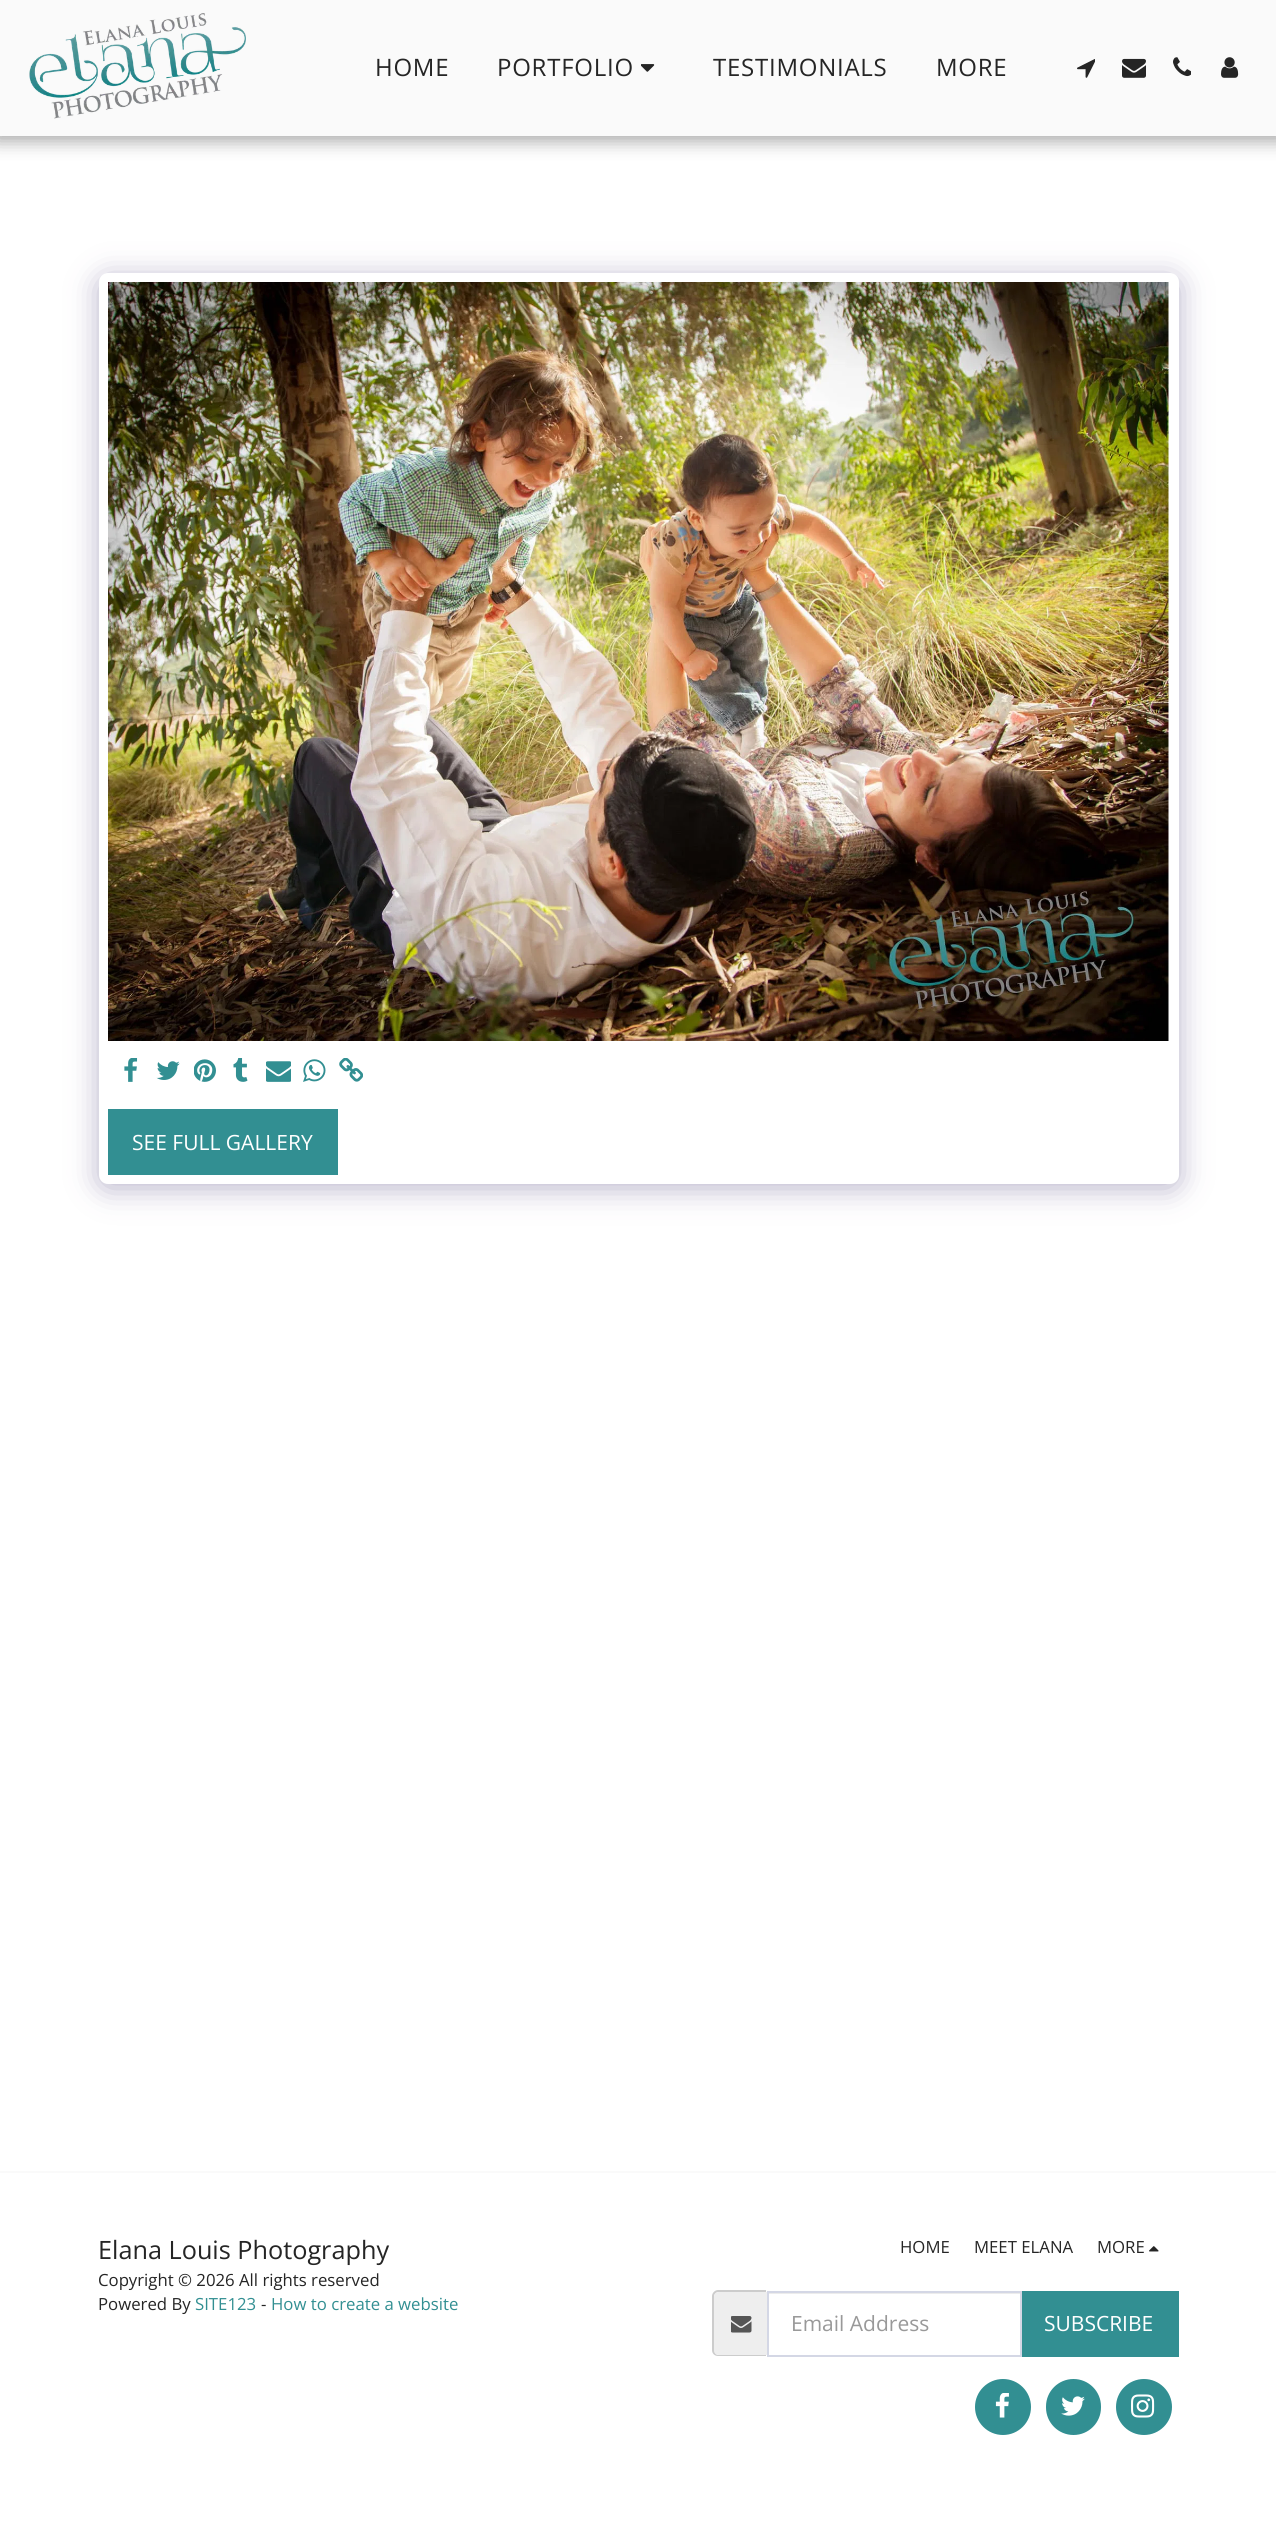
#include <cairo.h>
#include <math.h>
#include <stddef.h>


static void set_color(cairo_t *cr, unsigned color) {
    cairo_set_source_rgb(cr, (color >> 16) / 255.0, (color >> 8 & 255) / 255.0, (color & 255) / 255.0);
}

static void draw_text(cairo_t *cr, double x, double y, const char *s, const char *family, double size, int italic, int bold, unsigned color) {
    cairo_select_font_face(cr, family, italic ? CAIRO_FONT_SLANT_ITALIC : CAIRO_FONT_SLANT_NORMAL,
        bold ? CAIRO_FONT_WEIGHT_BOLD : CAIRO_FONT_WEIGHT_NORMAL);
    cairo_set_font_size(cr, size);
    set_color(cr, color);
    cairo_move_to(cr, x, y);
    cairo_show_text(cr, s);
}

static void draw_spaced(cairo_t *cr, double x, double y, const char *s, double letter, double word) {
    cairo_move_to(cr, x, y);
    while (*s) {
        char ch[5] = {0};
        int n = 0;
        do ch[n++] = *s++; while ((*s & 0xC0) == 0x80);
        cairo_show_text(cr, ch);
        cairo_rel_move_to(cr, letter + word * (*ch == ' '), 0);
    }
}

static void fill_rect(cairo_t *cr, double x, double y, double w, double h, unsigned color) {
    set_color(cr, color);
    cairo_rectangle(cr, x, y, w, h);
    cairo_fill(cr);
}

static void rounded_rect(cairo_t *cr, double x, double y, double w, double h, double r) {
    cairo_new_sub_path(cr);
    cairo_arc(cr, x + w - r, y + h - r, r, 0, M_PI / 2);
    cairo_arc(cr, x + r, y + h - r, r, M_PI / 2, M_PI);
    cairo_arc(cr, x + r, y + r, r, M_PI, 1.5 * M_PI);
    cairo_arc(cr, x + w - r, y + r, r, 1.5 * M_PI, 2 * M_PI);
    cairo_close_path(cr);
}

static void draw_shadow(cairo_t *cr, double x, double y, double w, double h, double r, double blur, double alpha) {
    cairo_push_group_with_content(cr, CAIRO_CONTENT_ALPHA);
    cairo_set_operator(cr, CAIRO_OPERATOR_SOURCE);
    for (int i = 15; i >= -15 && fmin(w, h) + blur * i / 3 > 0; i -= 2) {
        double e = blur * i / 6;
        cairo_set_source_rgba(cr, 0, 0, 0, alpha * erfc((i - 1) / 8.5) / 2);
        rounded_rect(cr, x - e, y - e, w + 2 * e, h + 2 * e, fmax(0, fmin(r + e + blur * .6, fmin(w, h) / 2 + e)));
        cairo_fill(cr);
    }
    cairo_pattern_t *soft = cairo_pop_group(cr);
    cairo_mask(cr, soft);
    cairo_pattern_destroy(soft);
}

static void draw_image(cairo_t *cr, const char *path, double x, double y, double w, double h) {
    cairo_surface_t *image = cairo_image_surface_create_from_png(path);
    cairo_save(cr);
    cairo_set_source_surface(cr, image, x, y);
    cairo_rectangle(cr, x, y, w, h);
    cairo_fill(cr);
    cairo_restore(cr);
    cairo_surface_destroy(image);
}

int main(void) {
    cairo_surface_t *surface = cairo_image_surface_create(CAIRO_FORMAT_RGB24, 1276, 2543);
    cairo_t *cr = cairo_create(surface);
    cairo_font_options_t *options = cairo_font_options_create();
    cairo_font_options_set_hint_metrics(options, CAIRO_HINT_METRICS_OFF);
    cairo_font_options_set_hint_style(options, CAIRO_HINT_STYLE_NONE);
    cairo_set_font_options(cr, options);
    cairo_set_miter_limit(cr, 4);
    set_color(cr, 0xFFFFFF);
    cairo_paint(cr);
    set_color(cr, 0x000000);
    draw_shadow(cr, -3, 0, 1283, 141, 0, 9, 0.35);
    fill_rect(cr, 0, 0, 1276, 136, 0xFAFAFA);
    draw_image(cr, "assets/img1.png", 29, 13, 217, 106);
    cairo_select_font_face(cr, "Open Sans", CAIRO_FONT_SLANT_NORMAL, CAIRO_FONT_WEIGHT_NORMAL);
    cairo_set_font_size(cr, 24);
    set_color(cr, 0x252525);
    draw_spaced(cr, 375, 76, "HOME", 0.75, 0);
    draw_spaced(cr, 497, 76, "PORTFOLIO", 0.75, 0);
    draw_image(cr, "assets/img2.png", 641, 64, 14, 8);
    draw_spaced(cr, 713, 76, "TESTIMONIALS", 0.75, 0);
    draw_spaced(cr, 936, 76, "MORE", 0.75, 0);
    draw_image(cr, "assets/img3.png", 1077, 59, 18, 19);
    draw_image(cr, "assets/img4.png", 1122, 58, 24, 20);
    draw_image(cr, "assets/img5.png", 1173, 57, 18, 20);
    draw_image(cr, "assets/img6.png", 1221, 57, 18, 21);
    set_color(cr, 0x4D3F7A);
    draw_shadow(cr, 99, 278, 1080, 910, 9, 15, 0.4);
    set_color(cr, 0xFFFFFF);
    rounded_rect(cr, 99, 273, 1080, 911, 9);
    cairo_fill(cr);
    draw_image(cr, "assets/img7.png", 108, 282, 1061, 759);
    draw_image(cr, "assets/img8.png", 124, 1058, 14, 24);
    draw_image(cr, "assets/img9.png", 156, 1061, 24, 19);
    draw_image(cr, "assets/img10.png", 194, 1059, 22, 23);
    draw_image(cr, "assets/img11.png", 233, 1058, 15, 24);
    draw_image(cr, "assets/img12.png", 266, 1061, 25, 21);
    draw_image(cr, "assets/img13.png", 303, 1059, 23, 23);
    draw_image(cr, "assets/img14.png", 339, 1058, 24, 24);
    fill_rect(cr, 108, 1109, 230, 66, 0x328F92);
    draw_text(cr, 132, 1150, "SEE FULL GALLERY", "Open Sans", 21, 0, 0, 0xFFFFFF);
    fill_rect(cr, 0, 2171, 1276, 2, 0xFAFAFA);
    draw_text(cr, 98, 2259, "Elana Louis Photography", "Open Sans", 25.25, 0, 0, 0x252525);
    draw_text(cr, 98, 2286, "Copyright © 2026 All rights reserved", "Open Sans", 16.75, 0, 0, 0x252525);
    draw_text(cr, 98, 2310, "Powered By", "Open Sans", 16.75, 0, 0, 0x252525);
    draw_text(cr, 195, 2310, "SITE123", "Open Sans", 16.75, 0, 0, 0x328F92);
    draw_text(cr, 261, 2310, "-", "Open Sans", 16.75, 0, 0, 0x252525);
    draw_text(cr, 271, 2310, "How to create a website", "Open Sans", 16.75, 0, 0, 0x328F92);
    draw_text(cr, 900, 2253, "HOME", "Open Sans", 16.75, 0, 0, 0x252525);
    draw_text(cr, 974, 2253, "MEET ELANA", "Open Sans", 16.75, 0, 0, 0x252525);
    draw_text(cr, 1097, 2253, "MORE", "Open Sans", 16.75, 0, 0, 0x252525);
    draw_image(cr, "assets/img15.png", 1149, 2246, 10, 6);
    set_color(cr, 0xEEEEEE);
    cairo_new_path(cr);
    cairo_move_to(cr, 719, 2292);
    cairo_line_to(cr, 767, 2292);
    cairo_line_to(cr, 767, 2355);
    cairo_line_to(cr, 719, 2355);
    cairo_curve_to(cr, 716, 2355, 714, 2353, 714, 2350);
    cairo_line_to(cr, 714, 2297);
    cairo_curve_to(cr, 714, 2294, 716, 2292, 719, 2292);
    cairo_close_path(cr);
    cairo_fill(cr);
    set_color(cr, 0xCCCCCC);
    cairo_set_fill_rule(cr, CAIRO_FILL_RULE_EVEN_ODD);
    cairo_new_path(cr);
    cairo_move_to(cr, 718, 2290);
    cairo_line_to(cr, 766, 2290);
    cairo_line_to(cr, 766, 2356);
    cairo_line_to(cr, 718, 2356);
    cairo_curve_to(cr, 715, 2356, 712, 2354, 712, 2350);
    cairo_line_to(cr, 712, 2296);
    cairo_curve_to(cr, 712, 2293, 715, 2290, 718, 2290);
    cairo_close_path(cr);
    cairo_move_to(cr, 718, 2292);
    cairo_line_to(cr, 766, 2292);
    cairo_line_to(cr, 766, 2355);
    cairo_line_to(cr, 718, 2355);
    cairo_curve_to(cr, 716, 2355, 714, 2353, 714, 2350);
    cairo_line_to(cr, 714, 2296);
    cairo_curve_to(cr, 714, 2294, 716, 2292, 718, 2292);
    cairo_close_path(cr);
    cairo_fill(cr);
    draw_image(cr, "assets/img16.png", 731, 2316, 21, 17);
    fill_rect(cr, 768, 2293, 252, 1, 0xECECEC);
    cairo_rectangle(cr, 768, 2292, 253, 64);
    set_color(cr, 0xD4D7E5);
    cairo_stroke(cr);
    draw_text(cr, 791, 2331, "Email Address", "Open Sans", 21, 0, 0, 0x999999);
    fill_rect(cr, 1022, 2291, 157, 66, 0x328F92);
    draw_text(cr, 1044, 2331, "SUBSCRIBE", "Open Sans", 21, 0, 0, 0xFFFFFF);
    set_color(cr, 0x328F92);
    cairo_new_path(cr);
    cairo_arc(cr, 1003, 2407, 27, 0, 2 * M_PI);
    cairo_fill_preserve(cr);
    cairo_stroke(cr);
    draw_image(cr, "assets/img17.png", 995, 2393, 14, 25);
    rounded_rect(cr, 1047, 2380, 53, 54, 26.5);
    cairo_fill_preserve(cr);
    cairo_stroke(cr);
    draw_image(cr, "assets/img18.png", 1061, 2396, 24, 20);
    cairo_arc(cr, 1144, 2407, 27, 0, 2 * M_PI);
    cairo_fill_preserve(cr);
    cairo_stroke(cr);
    draw_image(cr, "assets/img19.png", 1131, 2394, 24, 24);
    cairo_surface_write_to_png(surface, "output.png");
    cairo_font_options_destroy(options);
    cairo_destroy(cr);
    cairo_surface_destroy(surface);
    return 0;
}
